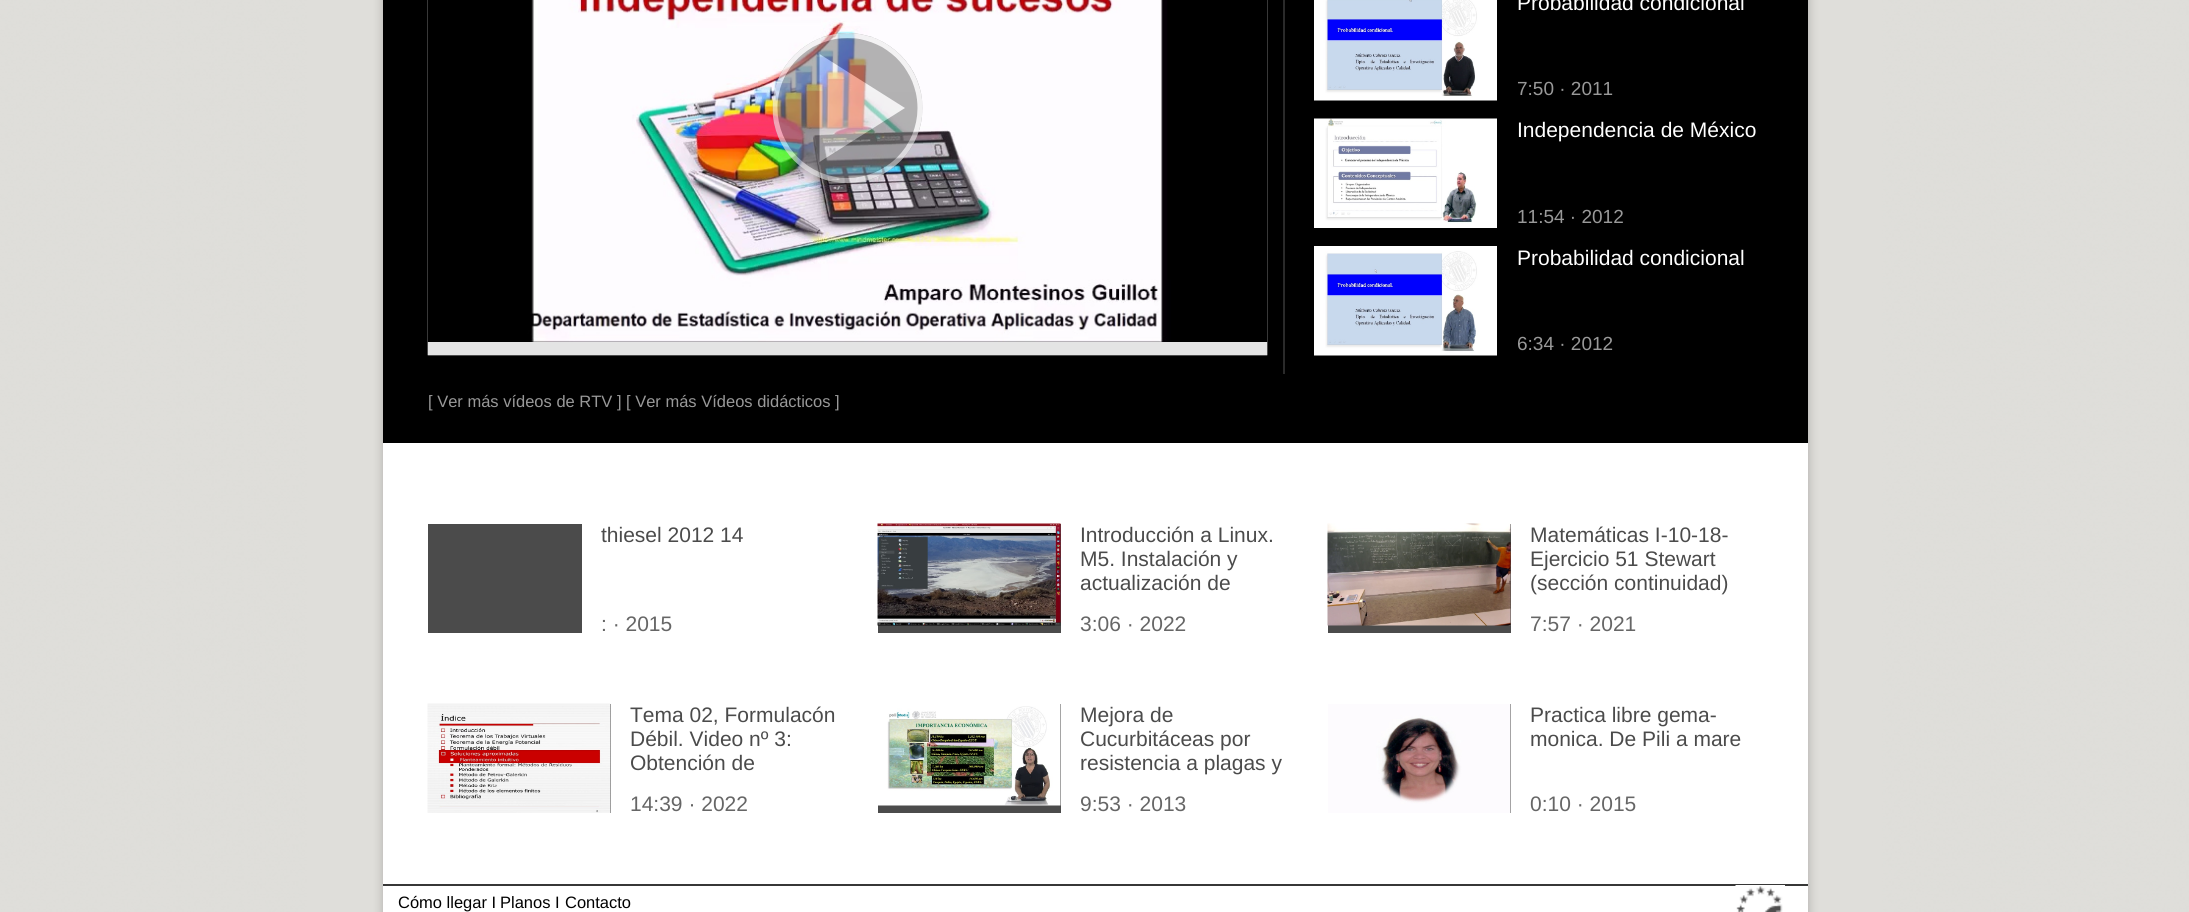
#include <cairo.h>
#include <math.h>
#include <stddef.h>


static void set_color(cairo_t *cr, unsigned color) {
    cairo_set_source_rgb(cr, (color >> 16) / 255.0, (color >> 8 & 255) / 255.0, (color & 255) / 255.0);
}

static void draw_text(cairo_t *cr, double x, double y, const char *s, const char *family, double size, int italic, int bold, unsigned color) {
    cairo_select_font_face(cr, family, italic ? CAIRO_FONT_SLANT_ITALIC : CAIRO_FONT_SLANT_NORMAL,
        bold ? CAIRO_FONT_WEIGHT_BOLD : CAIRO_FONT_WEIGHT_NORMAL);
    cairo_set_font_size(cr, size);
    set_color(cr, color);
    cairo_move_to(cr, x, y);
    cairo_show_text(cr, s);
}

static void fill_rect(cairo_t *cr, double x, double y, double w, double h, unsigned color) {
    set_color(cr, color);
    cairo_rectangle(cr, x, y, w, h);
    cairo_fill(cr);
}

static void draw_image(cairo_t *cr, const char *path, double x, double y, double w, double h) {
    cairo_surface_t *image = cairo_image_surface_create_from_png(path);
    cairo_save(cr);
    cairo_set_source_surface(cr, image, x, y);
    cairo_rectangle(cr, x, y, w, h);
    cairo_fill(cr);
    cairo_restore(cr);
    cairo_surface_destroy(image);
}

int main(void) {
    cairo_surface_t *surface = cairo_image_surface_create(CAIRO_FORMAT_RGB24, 2189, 912);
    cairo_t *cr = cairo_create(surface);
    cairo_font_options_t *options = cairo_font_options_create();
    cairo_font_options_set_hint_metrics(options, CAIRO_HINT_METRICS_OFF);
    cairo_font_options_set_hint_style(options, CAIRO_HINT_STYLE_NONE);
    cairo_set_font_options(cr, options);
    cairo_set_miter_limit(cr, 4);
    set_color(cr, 0xFFFFFF);
    cairo_paint(cr);
    draw_image(cr, "assets/img1.png", 0, 0, 2189, 912);
    fill_rect(cr, 383, 443, 1425, 469, 0xFFFFFF);
    fill_rect(cr, 383, 0, 1425, 443, 0x000000);
    fill_rect(cr, 1283, 0, 2, 374, 0x2A2A2A);
    draw_image(cr, "assets/img2.png", 1314, 0, 183, 101);
    draw_text(cr, 1517, 10, "Probabilidad condicional", "Liberation Sans", 21, 0, 0, 0xFFFFFF);
    draw_text(cr, 1517, 95, "7:50 · 2011", "Liberation Sans", 19, 0, 0, 0x999999);
    draw_image(cr, "assets/img3.png", 1314, 118, 183, 110);
    draw_text(cr, 1517, 137, "Independencia de México", "Liberation Sans", 21, 0, 0, 0xFFFFFF);
    draw_text(cr, 1517, 223, "11:54 · 2012", "Liberation Sans", 19, 0, 0, 0x999999);
    draw_image(cr, "assets/img4.png", 1314, 246, 183, 110);
    draw_text(cr, 1517, 265, "Probabilidad condicional", "Liberation Sans", 21, 0, 0, 0xFFFFFF);
    draw_text(cr, 1517, 350, "6:34 · 2012", "Liberation Sans", 19, 0, 0, 0x999999);
    draw_image(cr, "assets/img5.png", 427, 0, 841, 356);
    draw_text(cr, 428, 407, "[ Ver más vídeos de RTV ]", "Liberation Sans", 16.5, 0, 0, 0x999999);
    draw_text(cr, 626, 407, "[ Ver más Vídeos didácticos ]", "Liberation Sans", 16.5, 0, 0, 0x999999);
    fill_rect(cr, 428, 524, 154, 109, 0x4B4B4B);
    draw_text(cr, 601, 542, "thiesel 2012 14", "Liberation Sans", 21, 0, 0, 0x4B4B4B);
    draw_text(cr, 601, 631, ": · 2015", "Liberation Sans", 21, 0, 0, 0x666666);
    fill_rect(cr, 878, 524, 183, 109, 0x4B4B4B);
    draw_image(cr, "assets/img6.png", 877, 523, 184, 103);
    draw_text(cr, 1080, 542, "Introducción a Linux.", "Liberation Sans", 21, 0, 0, 0x4B4B4B);
    draw_text(cr, 1080, 566, "M5. Instalación y", "Liberation Sans", 21, 0, 0, 0x4B4B4B);
    draw_text(cr, 1080, 590, "actualización de", "Liberation Sans", 21, 0, 0, 0x4B4B4B);
    draw_text(cr, 1080, 631, "3:06 · 2022", "Liberation Sans", 21, 0, 0, 0x666666);
    fill_rect(cr, 1328, 524, 183, 109, 0x4B4B4B);
    draw_image(cr, "assets/img7.png", 1327, 523, 184, 103);
    draw_text(cr, 1530, 542, "Matemáticas I-10-18-", "Liberation Sans", 21, 0, 0, 0x4B4B4B);
    draw_text(cr, 1530, 566, "Ejercicio 51 Stewart", "Liberation Sans", 21, 0, 0, 0x4B4B4B);
    draw_text(cr, 1530, 590, "(sección continuidad)", "Liberation Sans", 21, 0, 0, 0x4B4B4B);
    draw_text(cr, 1530, 631, "7:57 · 2021", "Liberation Sans", 21, 0, 0, 0x666666);
    fill_rect(cr, 610, 704, 1, 109, 0x4B4B4B);
    draw_image(cr, "assets/img8.png", 427, 703, 184, 110);
    draw_text(cr, 630, 722, "Tema 02, Formulacón", "Liberation Sans", 21, 0, 0, 0x4B4B4B);
    draw_text(cr, 630, 746, "Débil. Video nº 3:", "Liberation Sans", 21, 0, 0, 0x4B4B4B);
    draw_text(cr, 630, 770, "Obtención de", "Liberation Sans", 21, 0, 0, 0x4B4B4B);
    draw_text(cr, 630, 811, "14:39 · 2022", "Liberation Sans", 21, 0, 0, 0x666666);
    fill_rect(cr, 878, 704, 183, 109, 0x4B4B4B);
    draw_image(cr, "assets/img9.png", 878, 704, 183, 102);
    draw_text(cr, 1080, 722, "Mejora de", "Liberation Sans", 21, 0, 0, 0x4B4B4B);
    draw_text(cr, 1080, 746, "Cucurbitáceas por", "Liberation Sans", 21, 0, 0, 0x4B4B4B);
    draw_text(cr, 1080, 770, "resistencia a plagas y", "Liberation Sans", 21, 0, 0, 0x4B4B4B);
    draw_text(cr, 1080, 811, "9:53 · 2013", "Liberation Sans", 21, 0, 0, 0x666666);
    fill_rect(cr, 1510, 704, 1, 109, 0x4B4B4B);
    draw_image(cr, "assets/img10.png", 1328, 704, 183, 109);
    draw_text(cr, 1530, 722, "Practica libre gema-", "Liberation Sans", 21, 0, 0, 0x4B4B4B);
    draw_text(cr, 1530, 746, "monica. De Pili a mare", "Liberation Sans", 21, 0, 0, 0x4B4B4B);
    draw_text(cr, 1530, 811, "0:10 · 2015", "Liberation Sans", 21, 0, 0, 0x666666);
    fill_rect(cr, 383, 884, 1425, 2, 0x373737);
    draw_text(cr, 398, 908, "Cómo llegar I", "Liberation Sans", 16.5, 0, 0, 0x000000);
    draw_text(cr, 500, 908, "Planos I", "Liberation Sans", 16.5, 0, 0, 0x000000);
    draw_text(cr, 565, 908, "Contacto", "Liberation Sans", 16.5, 0, 0, 0x000000);
    draw_image(cr, "assets/img11.png", 1735, 885, 50, 27);
    cairo_surface_write_to_png(surface, "output.png");
    cairo_font_options_destroy(options);
    cairo_destroy(cr);
    cairo_surface_destroy(surface);
    return 0;
}
